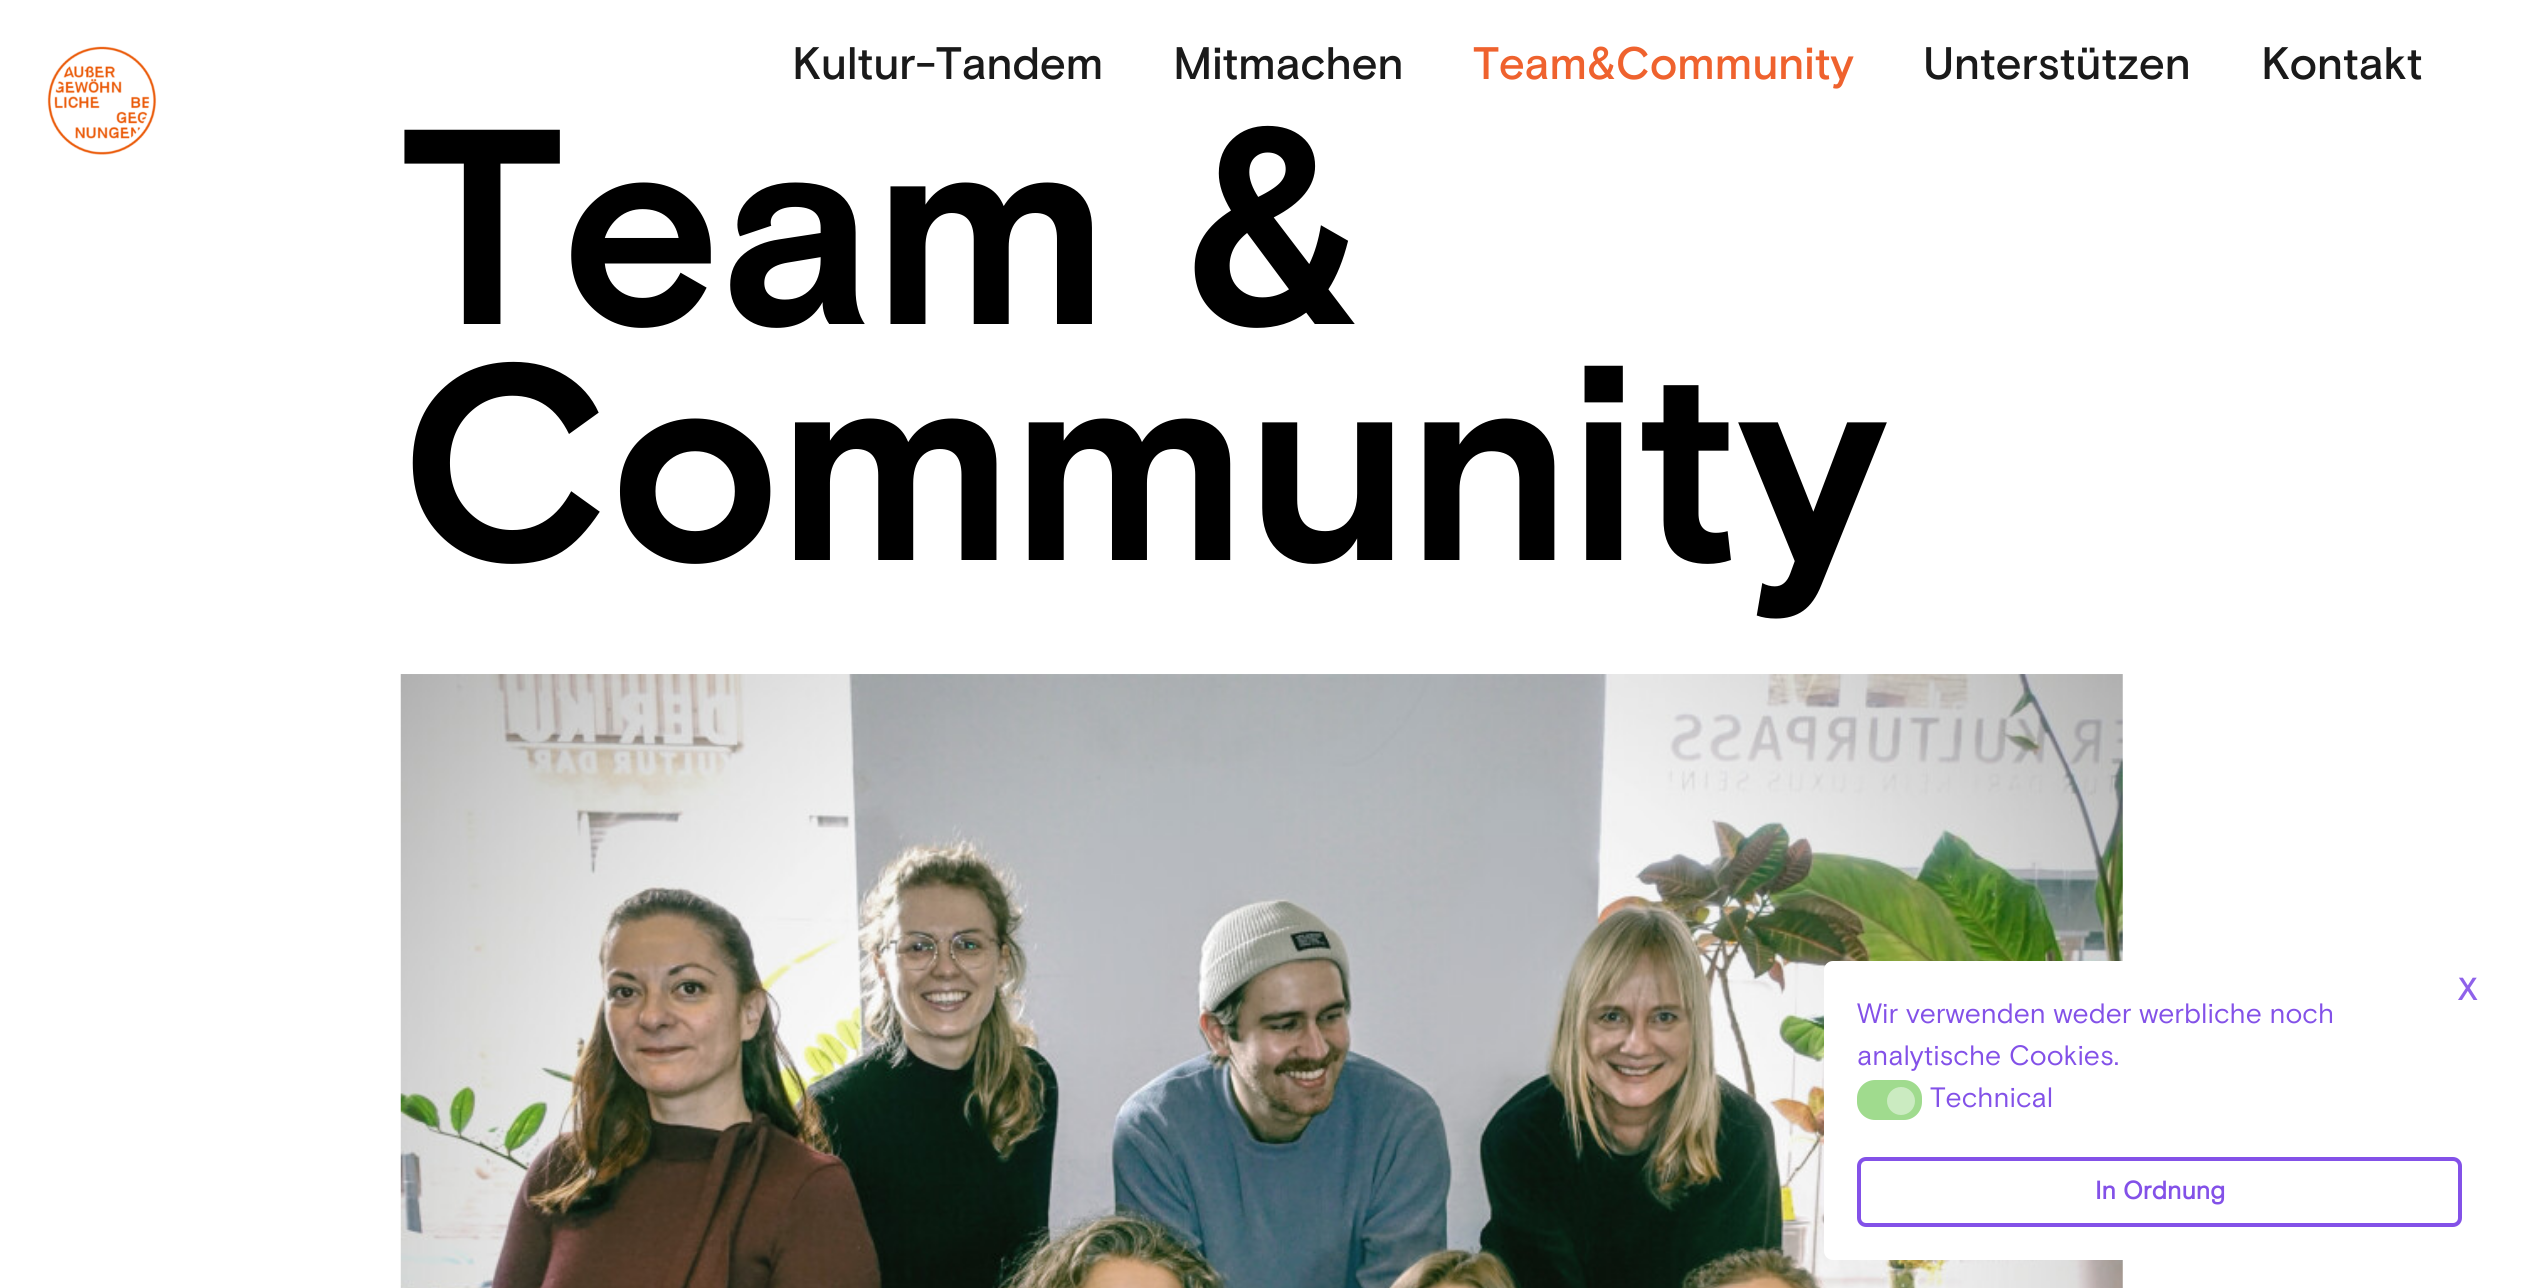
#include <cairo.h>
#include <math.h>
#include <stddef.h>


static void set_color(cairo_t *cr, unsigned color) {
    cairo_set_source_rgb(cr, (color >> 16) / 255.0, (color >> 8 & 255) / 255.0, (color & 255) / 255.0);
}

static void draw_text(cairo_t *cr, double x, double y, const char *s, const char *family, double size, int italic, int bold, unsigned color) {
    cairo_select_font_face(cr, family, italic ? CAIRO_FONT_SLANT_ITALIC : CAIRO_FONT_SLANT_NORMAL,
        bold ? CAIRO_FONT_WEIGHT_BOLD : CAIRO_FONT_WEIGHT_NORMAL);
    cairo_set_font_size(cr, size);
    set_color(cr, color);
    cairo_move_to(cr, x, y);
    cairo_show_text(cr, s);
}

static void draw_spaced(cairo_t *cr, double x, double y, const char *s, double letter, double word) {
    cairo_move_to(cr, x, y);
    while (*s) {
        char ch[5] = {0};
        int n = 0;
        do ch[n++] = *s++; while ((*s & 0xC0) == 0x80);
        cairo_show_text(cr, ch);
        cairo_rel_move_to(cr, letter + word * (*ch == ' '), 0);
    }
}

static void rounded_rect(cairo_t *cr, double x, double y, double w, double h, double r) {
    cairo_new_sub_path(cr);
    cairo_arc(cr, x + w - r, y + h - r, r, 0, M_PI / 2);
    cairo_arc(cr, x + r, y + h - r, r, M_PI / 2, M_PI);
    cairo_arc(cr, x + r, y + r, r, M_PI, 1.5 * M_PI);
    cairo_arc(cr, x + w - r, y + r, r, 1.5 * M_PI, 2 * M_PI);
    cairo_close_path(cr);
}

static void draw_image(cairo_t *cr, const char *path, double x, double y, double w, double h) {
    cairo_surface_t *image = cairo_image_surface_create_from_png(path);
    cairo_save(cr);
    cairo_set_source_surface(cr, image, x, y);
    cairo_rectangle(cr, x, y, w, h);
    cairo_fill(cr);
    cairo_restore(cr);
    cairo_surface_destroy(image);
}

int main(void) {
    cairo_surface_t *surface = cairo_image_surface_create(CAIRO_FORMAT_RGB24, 2522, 1288);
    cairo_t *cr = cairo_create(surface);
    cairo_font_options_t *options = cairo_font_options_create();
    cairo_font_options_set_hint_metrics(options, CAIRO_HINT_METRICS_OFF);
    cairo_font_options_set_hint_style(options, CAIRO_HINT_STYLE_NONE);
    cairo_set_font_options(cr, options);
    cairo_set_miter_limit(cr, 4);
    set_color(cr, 0xFFFFFF);
    cairo_paint(cr);
    draw_image(cr, "assets/img1.png", 47, 46, 110, 109);
    cairo_select_font_face(cr, "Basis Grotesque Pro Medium", CAIRO_FONT_SLANT_NORMAL, CAIRO_FONT_WEIGHT_NORMAL);
    cairo_set_font_size(cr, 45.5);
    set_color(cr, 0x1A1A1A);
    draw_spaced(cr, 792, 79, "Kultur-Tandem", -0.5, 0);
    draw_spaced(cr, 1173, 79, "Mitmachen", -0.5, 0);
    set_color(cr, 0xEF622E);
    draw_spaced(cr, 1473, 79, "Team&Community", -0.5, 0);
    set_color(cr, 0x1A1A1A);
    draw_spaced(cr, 1923, 79, "Unterstützen", -0.5, 0);
    draw_spaced(cr, 2261, 79, "Kontakt", -0.5, 0);
    cairo_select_font_face(cr, "Basis Grotesque Pro", CAIRO_FONT_SLANT_NORMAL, CAIRO_FONT_WEIGHT_BOLD);
    cairo_set_font_size(cr, 277.5);
    set_color(cr, 0x000000);
    draw_spaced(cr, 400, 324, "Team &", -2.75, 0);
    draw_spaced(cr, 400, 560, "Community", -2.75, 0);
    draw_image(cr, "assets/img2.png", 400, 674, 1723, 614);
    set_color(cr, 0xFFFFFF);
    rounded_rect(cr, 1824, 961, 672, 299, 9);
    cairo_fill(cr);
    draw_text(cr, 2458, 1000, "x", "Basis Grotesque Pro", 45, 0, 0, 0x8F62EA);
    draw_text(cr, 1857, 1023, "Wir verwenden weder werbliche noch", "Basis Grotesque Pro", 28, 0, 0, 0x8351E8);
    draw_text(cr, 1857, 1065, "analytische Cookies.", "Basis Grotesque Pro", 28, 0, 0, 0x8351E8);
    set_color(cr, 0xA0DB8E);
    rounded_rect(cr, 1857, 1080, 65, 40, 18);
    cairo_fill(cr);
    set_color(cr, 0xCBEBC1);
    cairo_arc(cr, 1901, 1101, 14, 0, 2 * M_PI);
    cairo_fill(cr);
    draw_text(cr, 1930, 1107, "Technical", "Basis Grotesque Pro", 28, 0, 0, 0x8351E8);
    rounded_rect(cr, 1859, 1159, 601, 66, 7);
    cairo_set_line_width(cr, 4);
    cairo_stroke(cr);
    draw_text(cr, 2095, 1199, "In Ordnung", "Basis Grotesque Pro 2", 25.25, 0, 1, 0x8351E8);
    cairo_surface_write_to_png(surface, "output.png");
    cairo_font_options_destroy(options);
    cairo_destroy(cr);
    cairo_surface_destroy(surface);
    return 0;
}
